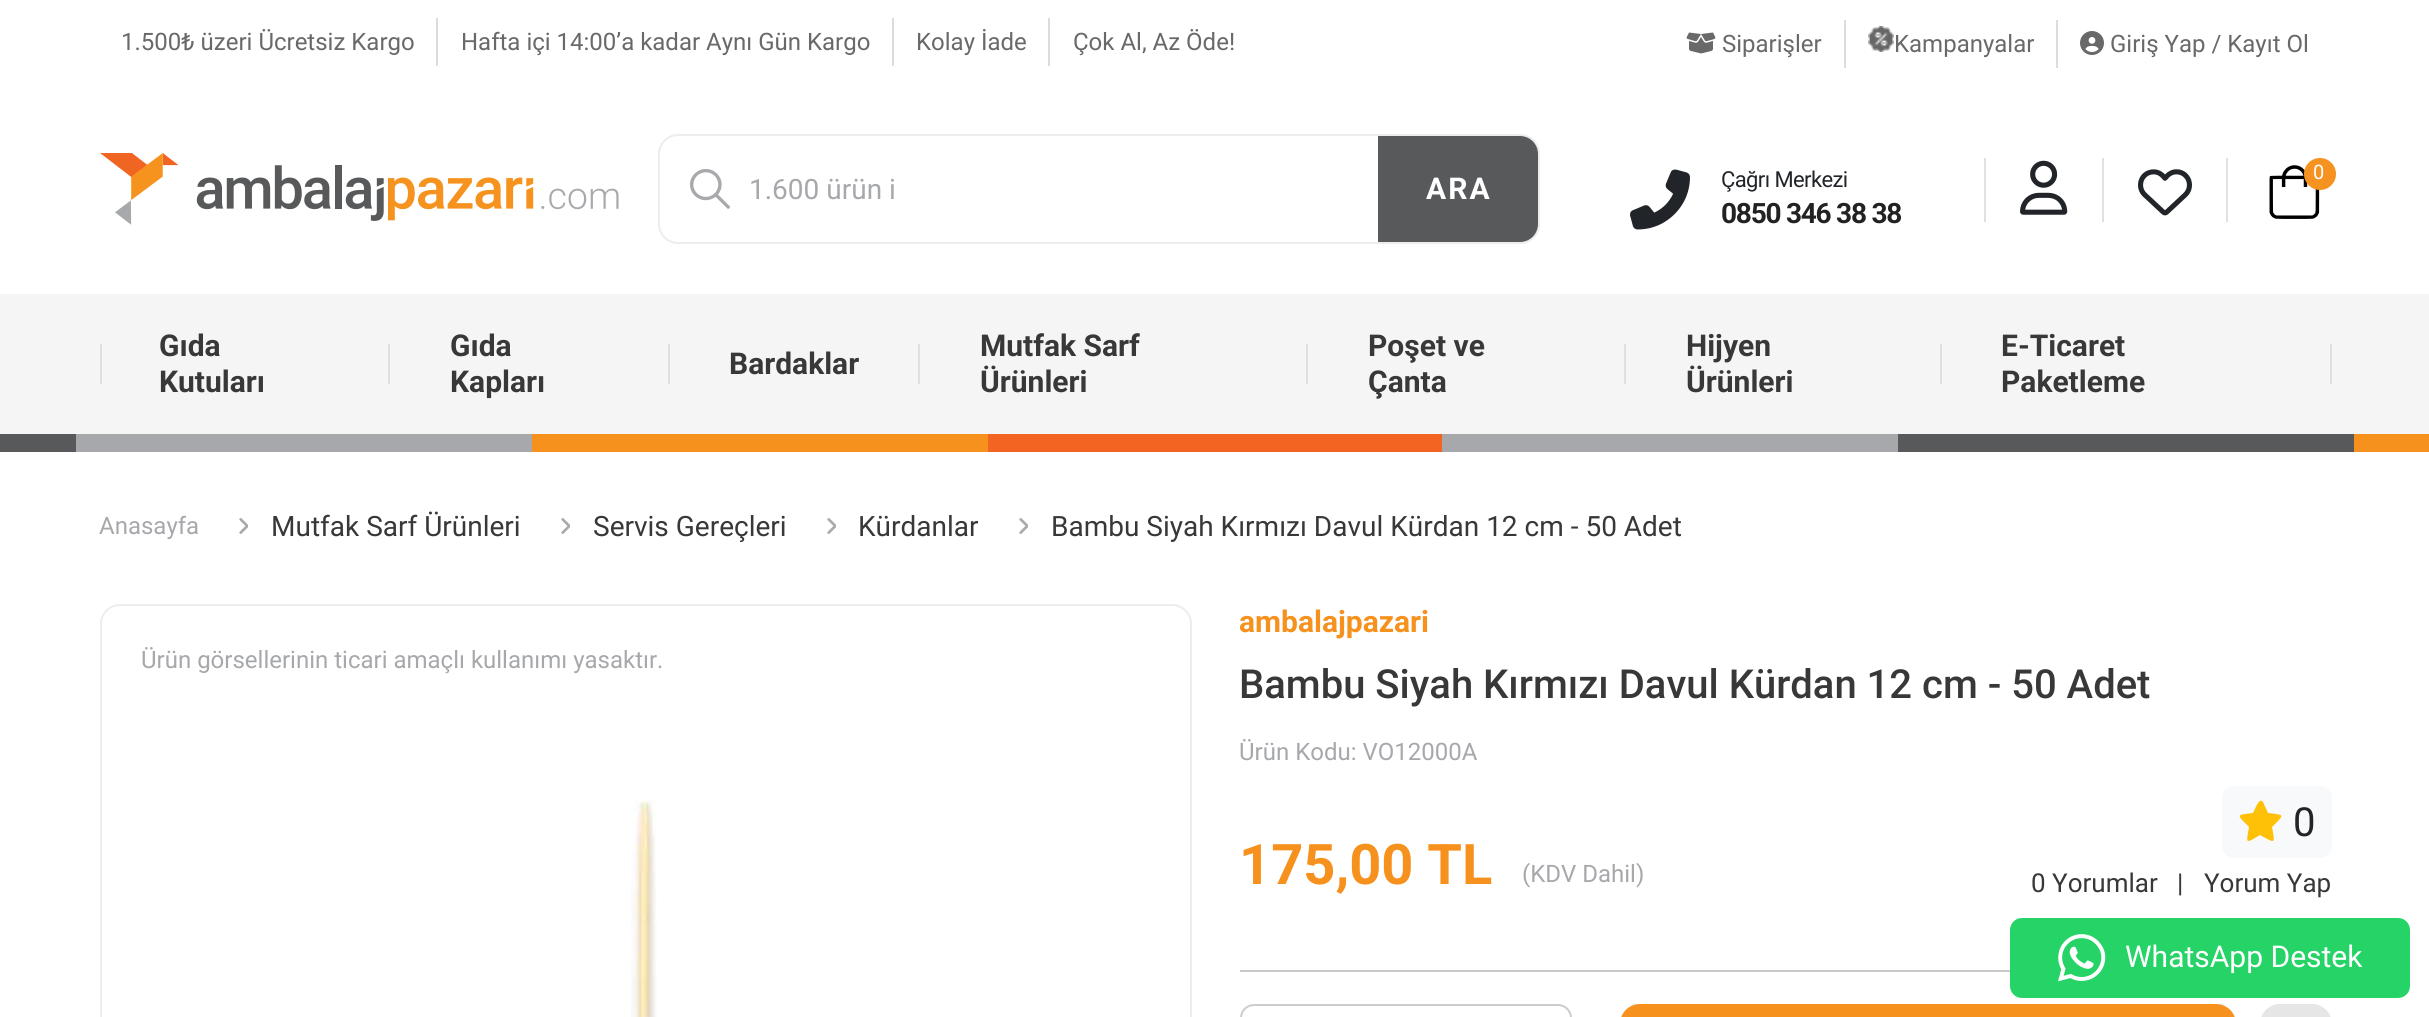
#include <cairo.h>
#include <math.h>
#include <stddef.h>


static void set_color(cairo_t *cr, unsigned color) {
    cairo_set_source_rgb(cr, (color >> 16) / 255.0, (color >> 8 & 255) / 255.0, (color & 255) / 255.0);
}

static void draw_text(cairo_t *cr, double x, double y, const char *s, const char *family, double size, int italic, int bold, unsigned color) {
    cairo_select_font_face(cr, family, italic ? CAIRO_FONT_SLANT_ITALIC : CAIRO_FONT_SLANT_NORMAL,
        bold ? CAIRO_FONT_WEIGHT_BOLD : CAIRO_FONT_WEIGHT_NORMAL);
    cairo_set_font_size(cr, size);
    set_color(cr, color);
    cairo_move_to(cr, x, y);
    cairo_show_text(cr, s);
}

static void draw_spaced(cairo_t *cr, double x, double y, const char *s, double letter, double word) {
    cairo_move_to(cr, x, y);
    while (*s) {
        char ch[5] = {0};
        int n = 0;
        do ch[n++] = *s++; while ((*s & 0xC0) == 0x80);
        cairo_show_text(cr, ch);
        cairo_rel_move_to(cr, letter + word * (*ch == ' '), 0);
    }
}

static void fill_rect(cairo_t *cr, double x, double y, double w, double h, unsigned color) {
    set_color(cr, color);
    cairo_rectangle(cr, x, y, w, h);
    cairo_fill(cr);
}

static void rounded_rect(cairo_t *cr, double x, double y, double w, double h, double r) {
    cairo_new_sub_path(cr);
    cairo_arc(cr, x + w - r, y + h - r, r, 0, M_PI / 2);
    cairo_arc(cr, x + r, y + h - r, r, M_PI / 2, M_PI);
    cairo_arc(cr, x + r, y + r, r, M_PI, 1.5 * M_PI);
    cairo_arc(cr, x + w - r, y + r, r, 1.5 * M_PI, 2 * M_PI);
    cairo_close_path(cr);
}

static void draw_image(cairo_t *cr, const char *path, double x, double y, double w, double h) {
    cairo_surface_t *image = cairo_image_surface_create_from_png(path);
    cairo_save(cr);
    cairo_set_source_surface(cr, image, x, y);
    cairo_rectangle(cr, x, y, w, h);
    cairo_fill(cr);
    cairo_restore(cr);
    cairo_surface_destroy(image);
}

int main(void) {
    cairo_surface_t *surface = cairo_image_surface_create(CAIRO_FORMAT_RGB24, 2429, 1017);
    cairo_t *cr = cairo_create(surface);
    cairo_font_options_t *options = cairo_font_options_create();
    cairo_font_options_set_hint_metrics(options, CAIRO_HINT_METRICS_OFF);
    cairo_font_options_set_hint_style(options, CAIRO_HINT_STYLE_NONE);
    cairo_set_font_options(cr, options);
    cairo_set_miter_limit(cr, 4);
    set_color(cr, 0xFFFFFF);
    cairo_paint(cr);
    fill_rect(cr, 436, 18, 2, 48, 0xDCDCDC);
    draw_text(cr, 121, 50, "1.500₺ üzeri Ücretsiz Kargo", "Roboto", 24, 0, 0, 0x696969);
    fill_rect(cr, 892, 18, 2, 48, 0xDCDCDC);
    draw_text(cr, 461, 50, "Hafta içi 14:00’a kadar Aynı Gün Kargo", "Roboto", 24, 0, 0, 0x696969);
    fill_rect(cr, 1048, 18, 2, 48, 0xDCDCDC);
    draw_text(cr, 916, 50, "Kolay İade", "Roboto", 24, 0, 0, 0x696969);
    draw_text(cr, 1073, 50, "Çok Al, Az Öde!", "Roboto", 24, 0, 0, 0x696969);
    fill_rect(cr, 1844, 20, 2, 48, 0xDCDCDC);
    draw_image(cr, "assets/img1.png", 1686, 32, 30, 22);
    draw_text(cr, 1722, 52, "Siparişler", "Roboto", 24, 0, 0, 0x696969);
    draw_image(cr, "assets/img2.png", 1868, 26, 26, 26);
    draw_text(cr, 1894, 52, "Kampanyalar", "Roboto", 24, 0, 0, 0x696969);
    fill_rect(cr, 2056, 20, 2, 48, 0xDCDCDC);
    draw_image(cr, "assets/img3.png", 2080, 31, 24, 24);
    draw_text(cr, 2110, 52, "Giriş Yap / Kayıt Ol", "Roboto", 24, 0, 0, 0x696969);
    draw_image(cr, "assets/img4.png", 100, 153, 519, 72);
    rounded_rect(cr, 659, 135, 880, 108, 19);
    set_color(cr, 0xEDEDED);
    cairo_stroke(cr);
    draw_image(cr, "assets/img5.png", 690, 169, 40, 40);
    draw_text(cr, 749, 199, "1.600 ürün i", "Roboto", 28, 0, 0, 0xA6A8AB);
    set_color(cr, 0x57595B);
    cairo_new_path(cr);
    cairo_move_to(cr, 1378, 136);
    cairo_line_to(cr, 1520, 136);
    cairo_curve_to(cr, 1530, 136, 1538, 144, 1538, 154);
    cairo_line_to(cr, 1538, 224);
    cairo_curve_to(cr, 1538, 234, 1530, 242, 1520, 242);
    cairo_line_to(cr, 1378, 242);
    cairo_close_path(cr);
    cairo_fill(cr);
    cairo_select_font_face(cr, "Roboto", CAIRO_FONT_SLANT_NORMAL, CAIRO_FONT_WEIGHT_BOLD);
    cairo_set_font_size(cr, 30);
    set_color(cr, 0xFFFFFF);
    draw_spaced(cr, 1426, 199, "ARA", 2, 0);
    draw_image(cr, "assets/img6.png", 1630, 169, 60, 61);
    cairo_select_font_face(cr, "Roboto", CAIRO_FONT_SLANT_NORMAL, CAIRO_FONT_WEIGHT_NORMAL);
    cairo_set_font_size(cr, 22);
    set_color(cr, 0x212529);
    draw_spaced(cr, 1721, 187, "Çağrı Merkezi", -0.6, 0);
    cairo_select_font_face(cr, "Roboto", CAIRO_FONT_SLANT_NORMAL, CAIRO_FONT_WEIGHT_BOLD);
    cairo_set_font_size(cr, 28);
    set_color(cr, 0x222222);
    draw_spaced(cr, 1721, 223, "0850 346 38 38", -1.25, 0);
    fill_rect(cr, 1984, 158, 2, 64, 0xE1E1E1);
    draw_image(cr, "assets/img7.png", 2020, 160, 48, 55);
    fill_rect(cr, 2102, 158, 2, 64, 0xE1E1E1);
    draw_image(cr, "assets/img8.png", 2138, 169, 54, 47);
    fill_rect(cr, 2226, 158, 2, 64, 0xE1E1E1);
    draw_image(cr, "assets/img9.png", 2269, 165, 51, 54);
    set_color(cr, 0xF6921F);
    cairo_arc(cr, 2320, 174, 16, 0, 2 * M_PI);
    cairo_fill(cr);
    draw_text(cr, 2313, 179, "0", "Roboto", 20, 0, 0, 0xFFFFFF);
    fill_rect(cr, 0, 294, 2429, 140, 0xF5F5F5);
    fill_rect(cr, 100, 344, 2, 40, 0xE0E0E0);
    draw_text(cr, 159, 356, "Gıda", "Roboto", 30, 0, 1, 0x383838);
    fill_rect(cr, 388, 344, 2, 40, 0xE0E0E0);
    draw_text(cr, 159, 392, "Kutuları", "Roboto", 30, 0, 1, 0x383838);
    draw_text(cr, 450, 356, "Gıda", "Roboto", 30, 0, 1, 0x383838);
    fill_rect(cr, 668, 344, 2, 40, 0xE0E0E0);
    draw_text(cr, 450, 392, "Kapları", "Roboto", 30, 0, 1, 0x383838);
    draw_text(cr, 729, 374, "Bardaklar", "Roboto", 30, 0, 1, 0x383838);
    fill_rect(cr, 918, 344, 2, 40, 0xE0E0E0);
    draw_text(cr, 980, 356, "Mutfak Sarf", "Roboto", 30, 0, 1, 0x383838);
    fill_rect(cr, 1306, 344, 2, 40, 0xE0E0E0);
    draw_text(cr, 980, 392, "Ürünleri", "Roboto", 30, 0, 1, 0x383838);
    draw_text(cr, 1368, 356, "Poşet ve", "Roboto", 30, 0, 1, 0x383838);
    fill_rect(cr, 1624, 344, 2, 40, 0xE0E0E0);
    draw_text(cr, 1368, 392, "Çanta", "Roboto", 30, 0, 1, 0x383838);
    draw_text(cr, 1686, 356, "Hijyen", "Roboto", 30, 0, 1, 0x383838);
    fill_rect(cr, 1940, 344, 2, 40, 0xE0E0E0);
    draw_text(cr, 1686, 392, "Ürünleri", "Roboto", 30, 0, 1, 0x383838);
    draw_text(cr, 2001, 356, "E-Ticaret", "Roboto", 30, 0, 1, 0x383838);
    fill_rect(cr, 2330, 344, 2, 40, 0xE0E0E0);
    draw_text(cr, 2001, 392, "Paketleme", "Roboto", 30, 0, 1, 0x383838);
    fill_rect(cr, 0, 434, 76, 18, 0x57595B);
    fill_rect(cr, 76, 434, 456, 18, 0xA6A8AB);
    fill_rect(cr, 532, 434, 456, 18, 0xF6911E);
    fill_rect(cr, 988, 434, 454, 18, 0xF16422);
    fill_rect(cr, 1442, 434, 456, 18, 0xA6A8AB);
    fill_rect(cr, 1898, 434, 456, 18, 0x57595B);
    fill_rect(cr, 2354, 434, 75, 18, 0xF6911E);
    draw_text(cr, 99, 534, "Anasayfa", "Roboto", 24, 0, 0, 0xA6A8AB);
    draw_image(cr, "assets/img10.png", 239, 518, 9, 16);
    draw_text(cr, 271, 536, "Mutfak Sarf Ürünleri", "Roboto", 28, 0, 0, 0x383838);
    draw_image(cr, "assets/img10.png", 561, 518, 9, 16);
    draw_text(cr, 593, 536, "Servis Gereçleri", "Roboto", 28, 0, 0, 0x383838);
    draw_image(cr, "assets/img10.png", 827, 518, 9, 16);
    draw_text(cr, 858, 536, "Kürdanlar", "Roboto", 28, 0, 0, 0x383838);
    draw_image(cr, "assets/img10.png", 1019, 518, 9, 16);
    draw_text(cr, 1051, 536, "Bambu Siyah Kırmızı Davul Kürdan 12 cm - 50 Adet", "Roboto", 28, 0, 0, 0x383838);
    rounded_rect(cr, 101, 605, 1090, 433, 19);
    set_color(cr, 0xEDEDED);
    cairo_stroke(cr);
    draw_text(cr, 141, 668, "Ürün görsellerinin ticari amaçlı kullanımı yasaktır.", "Roboto", 24, 0, 0, 0xA6A8AB);
    draw_image(cr, "assets/img11.png", 631, 800, 26, 217);
    draw_text(cr, 1239, 632, "ambalajpazari", "Roboto", 30, 0, 1, 0xF6911E);
    draw_text(cr, 1239, 698, "Bambu Siyah Kırmızı Davul Kürdan 12 cm - 50 Adet", "Roboto Medium", 40, 0, 0, 0x383838);
    draw_text(cr, 1239, 760, "Ürün Kodu: VO12000A", "Roboto", 24, 0, 0, 0xA6A8AB);
    draw_text(cr, 1239, 884, "175,00 TL", "Roboto", 56, 0, 1, 0xF6911E);
    draw_text(cr, 1522, 882, "(KDV Dahil)", "Roboto", 24, 0, 0, 0xA6A8AB);
    set_color(cr, 0xF8F9FA);
    rounded_rect(cr, 2222, 786, 110, 72, 12);
    cairo_fill(cr);
    set_color(cr, 0xFFC107);
    cairo_new_path(cr);
    cairo_move_to(cr, 2263, 802);
    cairo_curve_to(cr, 2259, 796, 2254, 812, 2253, 813);
    cairo_curve_to(cr, 2236, 815, 2236, 814, 2249, 827);
    cairo_curve_to(cr, 2246, 844, 2245, 844, 2260, 835);
    cairo_curve_to(cr, 2276, 844, 2275, 844, 2272, 827);
    cairo_curve_to(cr, 2285, 814, 2285, 815, 2268, 813);
    cairo_close_path(cr);
    cairo_fill(cr);
    draw_text(cr, 2293, 836, "0", "Roboto", 40, 0, 0, 0x212529);
    draw_text(cr, 2031, 892, "0 Yorumlar", "Roboto", 26, 0, 0, 0x383838);
    draw_text(cr, 2177, 892, "|", "Roboto", 26, 0, 0, 0x383838);
    draw_text(cr, 2204, 892, "Yorum Yap", "Roboto", 26, 0, 0, 0x383838);
    fill_rect(cr, 1240, 970, 770, 2, 0xC8C9CA);
    rounded_rect(cr, 1241, 1005, 330, 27, 13);
    set_color(cr, 0xCCCCCC);
    cairo_stroke(cr);
    set_color(cr, 0xF6911E);
    rounded_rect(cr, 1620, 1004, 616, 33, 20);
    cairo_fill(cr);
    set_color(cr, 0xE6E6E6);
    rounded_rect(cr, 2260, 1004, 72, 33, 20);
    cairo_fill(cr);
    set_color(cr, 0x25D366);
    rounded_rect(cr, 2010, 918, 400, 80, 12);
    cairo_fill(cr);
    draw_image(cr, "assets/img12.png", 2058, 934, 48, 48);
    draw_text(cr, 2125, 967, "WhatsApp Destek", "Roboto", 30, 0, 0, 0xFFFFFF);
    cairo_surface_write_to_png(surface, "output.png");
    cairo_font_options_destroy(options);
    cairo_destroy(cr);
    cairo_surface_destroy(surface);
    return 0;
}
